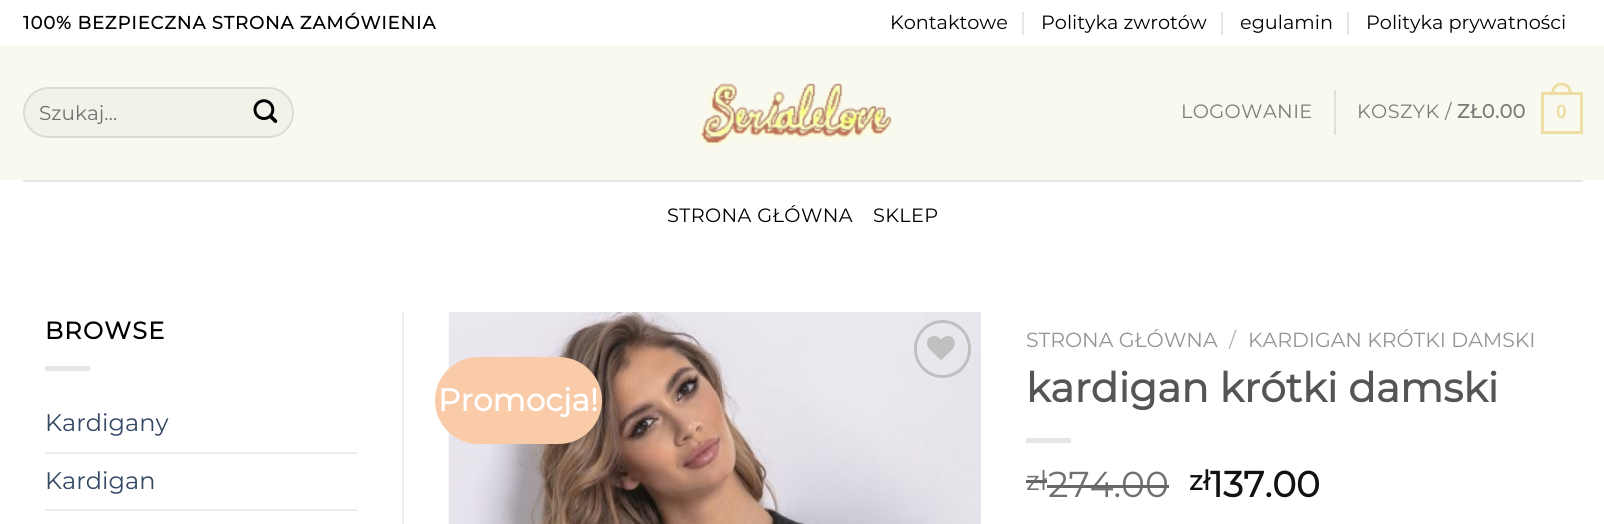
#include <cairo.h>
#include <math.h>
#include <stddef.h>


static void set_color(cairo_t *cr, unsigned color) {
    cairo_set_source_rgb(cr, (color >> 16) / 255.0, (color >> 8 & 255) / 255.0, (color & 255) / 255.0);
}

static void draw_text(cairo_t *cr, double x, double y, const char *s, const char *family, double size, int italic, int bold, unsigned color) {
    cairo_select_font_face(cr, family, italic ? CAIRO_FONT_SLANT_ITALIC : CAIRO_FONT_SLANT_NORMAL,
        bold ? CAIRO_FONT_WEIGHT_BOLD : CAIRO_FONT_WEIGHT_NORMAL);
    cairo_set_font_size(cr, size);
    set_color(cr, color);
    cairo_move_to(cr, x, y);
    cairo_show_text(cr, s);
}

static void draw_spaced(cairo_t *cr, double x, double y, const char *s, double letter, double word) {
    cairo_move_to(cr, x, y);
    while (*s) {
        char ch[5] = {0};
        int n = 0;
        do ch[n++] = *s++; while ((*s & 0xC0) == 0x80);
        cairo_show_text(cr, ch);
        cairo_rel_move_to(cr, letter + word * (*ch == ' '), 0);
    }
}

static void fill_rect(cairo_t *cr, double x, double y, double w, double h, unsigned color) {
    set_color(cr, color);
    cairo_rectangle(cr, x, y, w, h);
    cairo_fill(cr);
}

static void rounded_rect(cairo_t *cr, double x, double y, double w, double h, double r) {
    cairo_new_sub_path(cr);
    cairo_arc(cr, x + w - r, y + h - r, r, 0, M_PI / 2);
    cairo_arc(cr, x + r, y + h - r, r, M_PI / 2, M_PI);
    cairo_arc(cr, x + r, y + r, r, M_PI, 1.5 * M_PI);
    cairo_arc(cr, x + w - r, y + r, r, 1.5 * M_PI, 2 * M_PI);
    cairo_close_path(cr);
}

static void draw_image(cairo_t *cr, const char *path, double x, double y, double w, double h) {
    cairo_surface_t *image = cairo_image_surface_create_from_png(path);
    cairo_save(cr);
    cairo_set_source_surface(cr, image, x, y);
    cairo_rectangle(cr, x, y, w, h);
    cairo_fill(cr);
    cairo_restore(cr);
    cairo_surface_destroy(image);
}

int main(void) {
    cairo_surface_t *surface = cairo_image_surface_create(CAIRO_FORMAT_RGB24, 1604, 524);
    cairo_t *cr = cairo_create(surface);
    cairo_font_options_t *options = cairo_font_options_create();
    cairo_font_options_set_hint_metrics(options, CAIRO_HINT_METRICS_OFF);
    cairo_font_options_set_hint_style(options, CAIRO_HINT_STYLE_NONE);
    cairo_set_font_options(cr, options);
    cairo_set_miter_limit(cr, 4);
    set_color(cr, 0xFFFFFF);
    cairo_paint(cr);
    cairo_select_font_face(cr, "Montserrat", CAIRO_FONT_SLANT_NORMAL, CAIRO_FONT_WEIGHT_BOLD);
    cairo_set_font_size(cr, 18);
    set_color(cr, 0x000000);
    draw_spaced(cr, 23, 29, "100% BEZPIECZNA STRONA ZAMÓWIENIA", 0.9, 0);
    draw_text(cr, 890, 29, "Kontaktowe", "Montserrat Thin", 19.25, 0, 0, 0x000000);
    fill_rect(cr, 1022, 12, 2, 23, 0xE6E6E6);
    draw_text(cr, 1041, 29, "Polityka zwrotów", "Montserrat Thin", 19.25, 0, 0, 0x000000);
    fill_rect(cr, 1221, 12, 2, 23, 0xE6E6E6);
    draw_text(cr, 1240, 29, "egulamin", "Montserrat Thin", 19.25, 0, 0, 0x000000);
    fill_rect(cr, 1347, 12, 2, 23, 0xE6E6E6);
    draw_text(cr, 1366, 29, "Polityka prywatności", "Montserrat Thin", 19.25, 0, 0, 0x000000);
    fill_rect(cr, 0, 45, 1604, 135, 0xF9F9F0);
    set_color(cr, 0xF2F2E9);
    rounded_rect(cr, 23, 87, 271, 51, 25.5);
    cairo_fill(cr);
    rounded_rect(cr, 24, 88, 269, 49, 24.5);
    cairo_set_source_rgba(cr, 0, 0, 0, 0.09);
    cairo_stroke(cr);
    draw_text(cr, 39, 120, "Szukaj…", "Montserrat Thin", 20, 0, 0, 0x707070);
    draw_image(cr, "assets/img1.png", 253, 99, 25, 24);
    draw_image(cr, "assets/img2.png", 698, 83, 194, 64);
    cairo_set_font_size(cr, 19.25);
    set_color(cr, 0x7C7C7B);
    draw_spaced(cr, 1181, 118, "LOGOWANIE", 0.4, 0);
    fill_rect(cr, 1334, 90, 2, 45, 0xE0E0D8);
    set_color(cr, 0x7C7C7B);
    draw_spaced(cr, 1357, 118, "KOSZYK /", 0.4, 0);
    cairo_select_font_face(cr, "Montserrat", CAIRO_FONT_SLANT_NORMAL, CAIRO_FONT_WEIGHT_BOLD);
    draw_spaced(cr, 1457, 118, "ZŁ0.00", 0.4, 0);
    cairo_rectangle(cr, 1542.5, 93.5, 39, 39);
    set_color(cr, 0xEEDDA4);
    cairo_set_line_width(cr, 3);
    cairo_stroke(cr);
    cairo_set_fill_rule(cr, CAIRO_FILL_RULE_EVEN_ODD);
    cairo_new_path(cr);
    cairo_move_to(cr, 1561.5, 82.5);
    cairo_curve_to(cr, 1568.5, 82.5, 1572, 88, 1572, 94.5);
    cairo_line_to(cr, 1551, 94.5);
    cairo_curve_to(cr, 1551, 88, 1554.5, 82.5, 1561.5, 82.5);
    cairo_close_path(cr);
    cairo_move_to(cr, 1561.5, 85.5);
    cairo_curve_to(cr, 1567, 85.5, 1569, 90, 1569, 94.5);
    cairo_line_to(cr, 1554, 94.5);
    cairo_curve_to(cr, 1554, 90, 1556, 85.5, 1561.5, 85.5);
    cairo_close_path(cr);
    cairo_fill(cr);
    cairo_select_font_face(cr, "Liberation Sans", CAIRO_FONT_SLANT_NORMAL, CAIRO_FONT_WEIGHT_BOLD);
    draw_spaced(cr, 1556, 118, "0", 0.4, 0);
    fill_rect(cr, 23, 180, 1560, 2, 0xE6E6E6);
    cairo_select_font_face(cr, "Montserrat Thin", CAIRO_FONT_SLANT_NORMAL, CAIRO_FONT_WEIGHT_NORMAL);
    set_color(cr, 0x000000);
    draw_spaced(cr, 667, 222, "STRONA GŁÓWNA", 0.4, 0);
    draw_spaced(cr, 873, 222, "SKLEP", 0.4, 0);
    cairo_select_font_face(cr, "Montserrat", CAIRO_FONT_SLANT_NORMAL, CAIRO_FONT_WEIGHT_BOLD);
    cairo_set_font_size(cr, 24);
    draw_spaced(cr, 45, 339, "BROWSE", 1.25, 0);
    fill_rect(cr, 45, 366, 45, 5, 0xE6E6E6);
    draw_text(cr, 45, 431, "Kardigany", "Montserrat Thin", 24, 0, 0, 0x334862);
    fill_rect(cr, 45, 452, 312, 2, 0xECECEC);
    draw_text(cr, 45, 489, "Kardigan", "Montserrat Thin", 24, 0, 0, 0x334862);
    fill_rect(cr, 45, 509, 312, 2, 0xECECEC);
    fill_rect(cr, 402, 312, 2, 212, 0xECECEC);
    draw_image(cr, "assets/img3.png", 448, 312, 533, 212);
    rounded_rect(cr, 915.5, 321.5, 54, 55, 27);
    set_color(cr, 0xC0C0C0);
    cairo_stroke(cr);
    draw_image(cr, "assets/img4.png", 927, 336, 28, 24);
    set_color(cr, 0xF9CBA8);
    rounded_rect(cr, 435, 357, 167, 87, 43.5);
    cairo_fill(cr);
    draw_text(cr, 438, 411, "Promocja!", "Montserrat", 31.25, 0, 1, 0xFFFFFF);
    draw_text(cr, 1026, 347, "STRONA GŁÓWNA", "Montserrat Thin", 20.4, 0, 0, 0x949494);
    draw_text(cr, 1229, 347, "/", "Montserrat Thin", 20.4, 0, 0, 0xB2B2B2);
    draw_text(cr, 1248, 347, "KARDIGAN KRÓTKI DAMSKI", "Montserrat Thin", 20.4, 0, 0, 0x949494);
    draw_text(cr, 1026, 402, "kardigan krótki damski", "Montserrat", 40.75, 0, 1, 0x555555);
    fill_rect(cr, 1026, 438, 45, 5, 0xE6E6E6);
    draw_text(cr, 1026, 490, "zł", "Montserrat Thin", 27, 0, 0, 0x707070);
    fill_rect(cr, 1026, 480, 21, 3, 0x666666);
    draw_text(cr, 1048, 497, "274.00", "Montserrat Thin", 36, 0, 0, 0x707070);
    fill_rect(cr, 1047, 485, 122, 3, 0x666666);
    draw_text(cr, 1189, 490, "zł", "Montserrat", 27, 0, 1, 0x111111);
    draw_text(cr, 1210, 497, "137.00", "Montserrat", 36, 0, 1, 0x111111);
    cairo_surface_write_to_png(surface, "output.png");
    cairo_font_options_destroy(options);
    cairo_destroy(cr);
    cairo_surface_destroy(surface);
    return 0;
}
